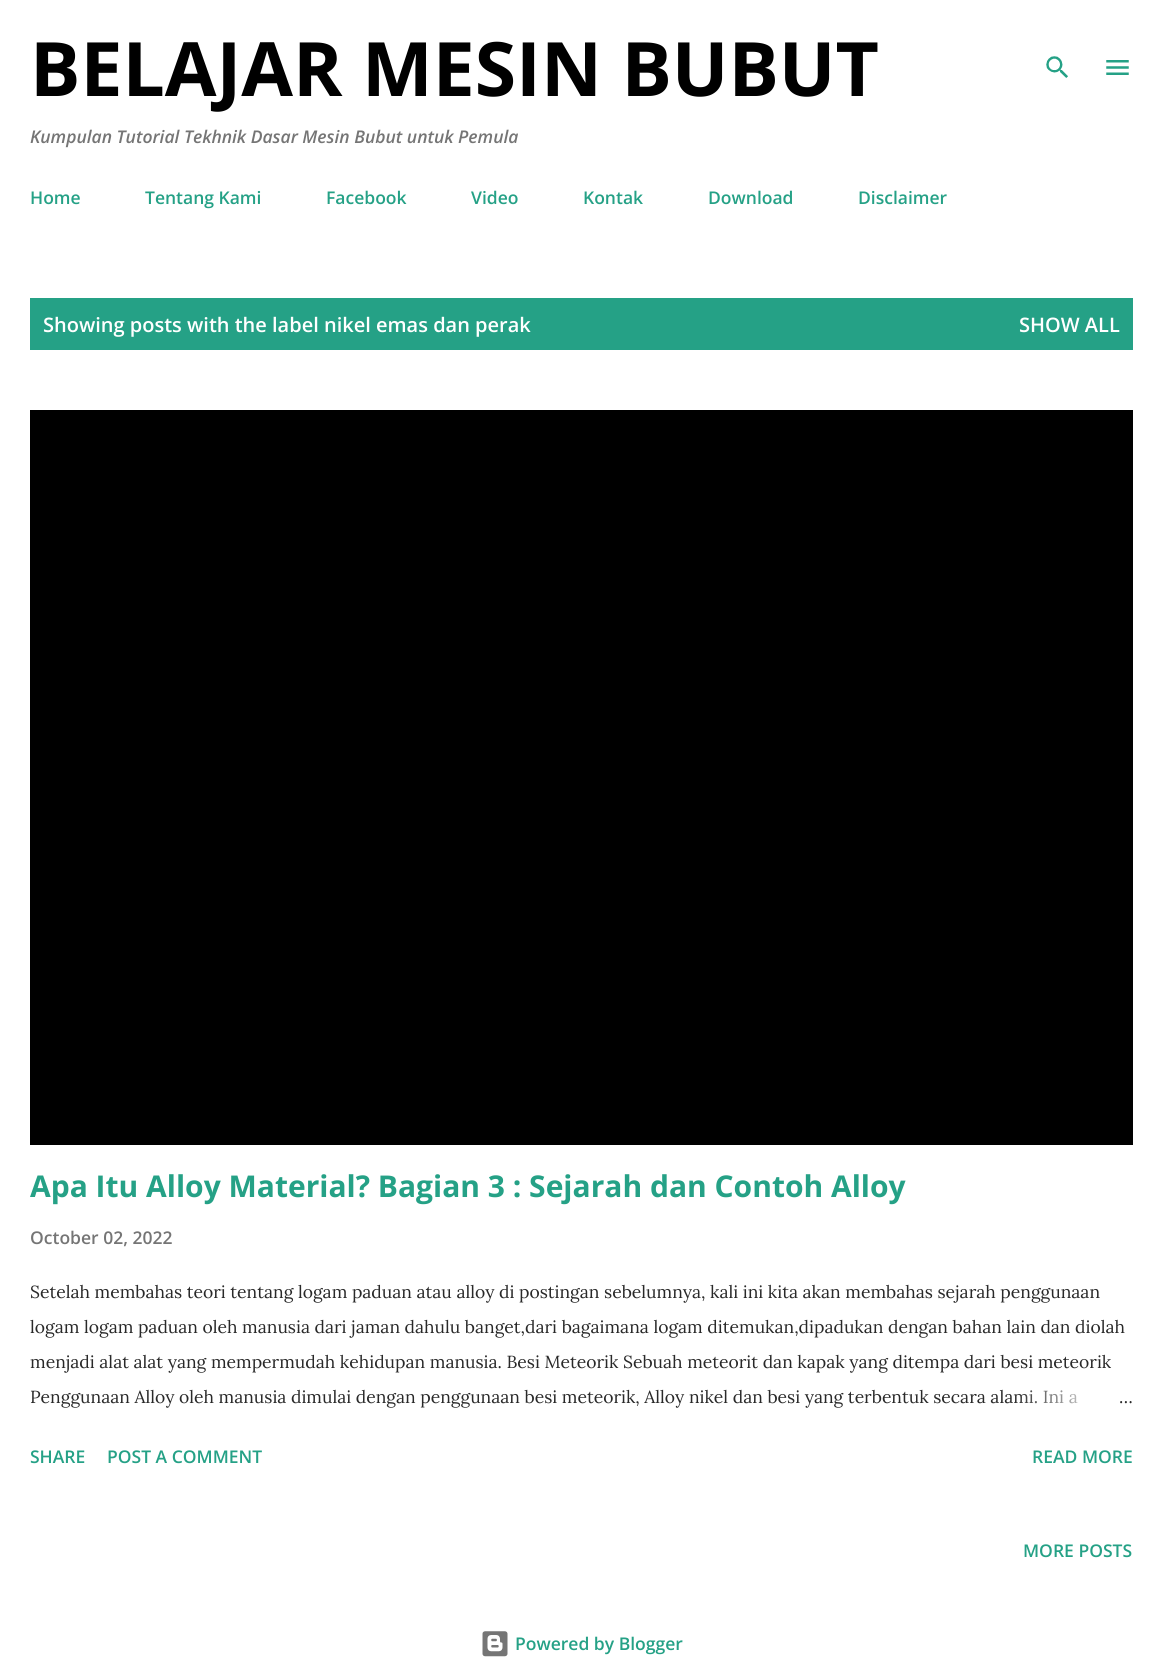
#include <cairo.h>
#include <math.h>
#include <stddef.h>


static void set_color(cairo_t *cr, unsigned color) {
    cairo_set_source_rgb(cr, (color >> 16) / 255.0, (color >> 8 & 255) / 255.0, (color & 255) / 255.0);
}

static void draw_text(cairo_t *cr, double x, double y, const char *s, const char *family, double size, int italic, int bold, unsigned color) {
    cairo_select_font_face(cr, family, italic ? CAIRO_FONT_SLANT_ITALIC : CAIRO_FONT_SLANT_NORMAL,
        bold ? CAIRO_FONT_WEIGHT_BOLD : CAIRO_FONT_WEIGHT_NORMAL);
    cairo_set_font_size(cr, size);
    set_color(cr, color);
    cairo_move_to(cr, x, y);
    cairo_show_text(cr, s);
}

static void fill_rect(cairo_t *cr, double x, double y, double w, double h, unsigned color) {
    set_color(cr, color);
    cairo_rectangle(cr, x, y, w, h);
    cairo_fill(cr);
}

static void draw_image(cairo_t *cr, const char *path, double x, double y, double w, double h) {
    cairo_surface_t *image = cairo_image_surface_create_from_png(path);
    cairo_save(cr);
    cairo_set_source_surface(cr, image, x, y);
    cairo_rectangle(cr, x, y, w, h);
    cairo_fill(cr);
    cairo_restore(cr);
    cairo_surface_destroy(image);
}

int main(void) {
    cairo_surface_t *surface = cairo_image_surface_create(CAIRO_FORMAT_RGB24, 1162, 1673);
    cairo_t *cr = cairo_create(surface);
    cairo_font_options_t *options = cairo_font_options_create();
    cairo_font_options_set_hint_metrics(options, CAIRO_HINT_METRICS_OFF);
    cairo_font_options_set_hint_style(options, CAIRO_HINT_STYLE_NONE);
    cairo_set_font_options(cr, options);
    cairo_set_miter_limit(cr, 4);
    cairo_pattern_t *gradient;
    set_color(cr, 0xFFFFFF);
    cairo_paint(cr);
    draw_text(cr, 30, 96, "BELAJAR MESIN BUBUT", "Open Sans", 75, 0, 1, 0x000000);
    draw_text(cr, 30, 143, "Kumpulan Tutorial Tekhnik Dasar Mesin Bubut untuk Pemula", "Open Sans SemiBold", 17.5, 1, 0, 0x757575);
    draw_image(cr, "assets/img1.png", 1046, 56, 22, 22);
    draw_image(cr, "assets/img2.png", 1106, 60, 23, 15);
    draw_text(cr, 30, 204, "Home", "Open Sans SemiBold", 17.5, 0, 0, 0x25A186);
    draw_text(cr, 145, 204, "Tentang Kami", "Open Sans SemiBold", 17.5, 0, 0, 0x25A186);
    draw_text(cr, 326, 204, "Facebook", "Open Sans SemiBold", 17.5, 0, 0, 0x25A186);
    draw_text(cr, 471, 204, "Video", "Open Sans SemiBold", 17.5, 0, 0, 0x25A186);
    draw_text(cr, 583, 204, "Kontak", "Open Sans SemiBold", 17.5, 0, 0, 0x25A186);
    draw_text(cr, 708, 204, "Download", "Open Sans SemiBold", 17.5, 0, 0, 0x25A186);
    draw_text(cr, 858, 204, "Disclaimer", "Open Sans SemiBold", 17.5, 0, 0, 0x25A186);
    fill_rect(cr, 30, 298, 1103, 52, 0x25A186);
    draw_text(cr, 43, 332, "Showing posts with the label nikel emas dan perak", "Open Sans SemiBold", 20, 0, 0, 0xFFFFFF);
    draw_text(cr, 1019, 332, "SHOW ALL", "Open Sans SemiBold", 20, 0, 0, 0xFFFFFF);
    fill_rect(cr, 30, 410, 1103, 735, 0x000000);
    draw_text(cr, 30, 1197, "Apa Itu Alloy Material? Bagian 3 : Sejarah dan Contoh Alloy", "Open Sans", 30, 0, 1, 0x25A186);
    draw_text(cr, 30, 1244, "October 02, 2022", "Open Sans SemiBold", 17.5, 0, 0, 0x757575);
    draw_text(cr, 30, 1298, "Setelah membahas teori tentang logam paduan atau alloy di postingan sebelumnya, kali ini kita akan membahas sejarah penggunaan", "Lora", 17.5, 0, 0, 0x292929);
    draw_text(cr, 30, 1333, "logam logam paduan oleh manusia dari jaman dahulu banget,dari bagaimana logam ditemukan,dipadukan dengan bahan lain dan diolah", "Lora", 17.5, 0, 0, 0x292929);
    draw_text(cr, 30, 1368, "menjadi alat alat yang mempermudah kehidupan manusia. Besi Meteorik Sebuah meteorit dan kapak yang ditempa dari besi meteorik", "Lora", 17.5, 0, 0, 0x292929);
    draw_text(cr, 30, 1403, "Penggunaan Alloy oleh manusia dimulai dengan penggunaan besi meteorik, Alloy nikel dan besi yang terbentuk secara alami. Ini a", "Lora", 17.5, 0, 0, 0x292929);
    gradient = cairo_pattern_create_linear(1133, 1396, 1013, 1396);
    cairo_pattern_add_color_stop_rgba(gradient, 0, 1, 1, 1, 1);
    cairo_pattern_add_color_stop_rgba(gradient, 0.2, 1, 1, 1, 1);
    cairo_pattern_add_color_stop_rgba(gradient, 1, 1, 1, 1, 0);
    cairo_set_source(cr, gradient);
    cairo_pattern_destroy(gradient);
    cairo_rectangle(cr, 1015, 1390, 63, 14);
    cairo_fill(cr);
    draw_text(cr, 1119, 1403, "…", "Lora", 17.5, 0, 0, 0x292929);
    draw_text(cr, 30, 1463, "SHARE", "Open Sans SemiBold", 17.5, 0, 0, 0x25A186);
    draw_text(cr, 107, 1463, "POST A COMMENT", "Open Sans SemiBold", 17.5, 0, 0, 0x25A186);
    draw_text(cr, 1032, 1463, "READ MORE", "Open Sans SemiBold", 17.5, 0, 0, 0x25A186);
    draw_text(cr, 1023, 1557, "MORE POSTS", "Open Sans SemiBold", 17.5, 0, 0, 0x25A186);
    draw_image(cr, "assets/img3.png", 482, 1631, 26, 26);
    draw_text(cr, 515, 1650, "Powered by Blogger", "Open Sans SemiBold", 17.5, 0, 0, 0x25A186);
    cairo_surface_write_to_png(surface, "output.png");
    cairo_font_options_destroy(options);
    cairo_destroy(cr);
    cairo_surface_destroy(surface);
    return 0;
}
